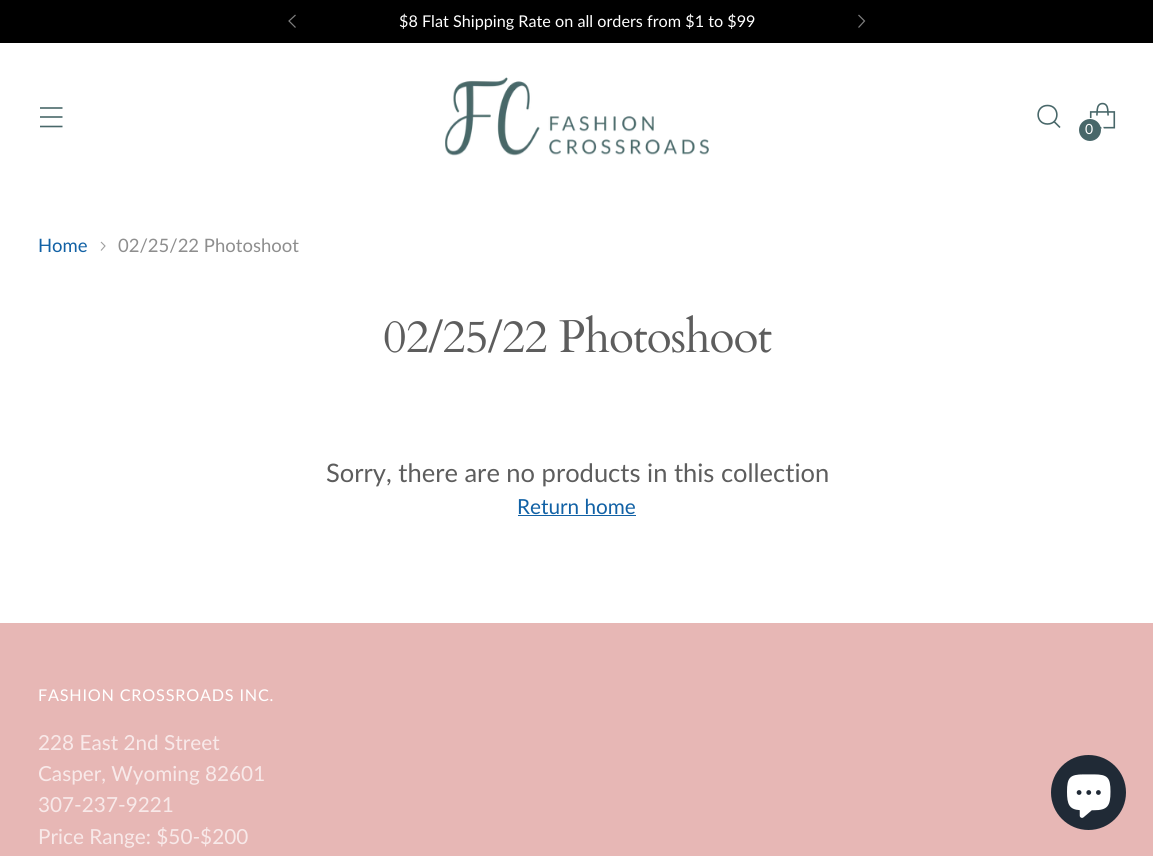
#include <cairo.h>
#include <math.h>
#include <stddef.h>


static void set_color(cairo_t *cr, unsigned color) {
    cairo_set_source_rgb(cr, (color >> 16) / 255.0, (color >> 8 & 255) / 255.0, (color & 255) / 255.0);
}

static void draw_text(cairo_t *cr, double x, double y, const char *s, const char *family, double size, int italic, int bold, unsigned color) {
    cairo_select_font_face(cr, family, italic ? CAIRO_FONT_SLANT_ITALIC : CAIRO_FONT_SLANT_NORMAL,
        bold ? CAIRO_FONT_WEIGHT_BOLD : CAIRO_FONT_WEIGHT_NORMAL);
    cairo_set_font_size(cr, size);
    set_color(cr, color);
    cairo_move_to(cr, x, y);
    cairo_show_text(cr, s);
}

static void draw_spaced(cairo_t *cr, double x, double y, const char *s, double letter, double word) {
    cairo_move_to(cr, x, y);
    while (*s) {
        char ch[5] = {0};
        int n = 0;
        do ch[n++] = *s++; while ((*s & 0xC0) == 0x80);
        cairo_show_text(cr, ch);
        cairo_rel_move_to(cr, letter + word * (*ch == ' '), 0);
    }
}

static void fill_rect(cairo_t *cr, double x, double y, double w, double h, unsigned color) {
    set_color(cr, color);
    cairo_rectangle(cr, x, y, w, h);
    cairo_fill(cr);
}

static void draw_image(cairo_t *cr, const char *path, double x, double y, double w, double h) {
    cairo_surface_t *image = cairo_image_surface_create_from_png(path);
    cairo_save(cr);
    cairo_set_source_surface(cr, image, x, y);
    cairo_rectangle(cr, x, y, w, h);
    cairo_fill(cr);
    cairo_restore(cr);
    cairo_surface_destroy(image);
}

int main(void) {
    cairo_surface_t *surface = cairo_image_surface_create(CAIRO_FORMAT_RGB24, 1153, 856);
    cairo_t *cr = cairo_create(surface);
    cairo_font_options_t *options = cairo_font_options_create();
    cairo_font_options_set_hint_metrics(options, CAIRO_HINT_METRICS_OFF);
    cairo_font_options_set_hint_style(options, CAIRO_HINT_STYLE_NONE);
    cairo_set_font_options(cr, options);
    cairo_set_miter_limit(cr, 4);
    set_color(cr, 0xFFFFFF);
    cairo_paint(cr);
    fill_rect(cr, 0, 0, 1153, 43, 0x000000);
    draw_text(cr, 399, 27, "$8 Flat Shipping Rate on all orders from $1 to $99", "Lato", 16.2, 0, 0, 0xFFFFFF);
    cairo_new_path(cr);
    cairo_move_to(cr, 295.5, 15);
    cairo_line_to(cr, 289, 21);
    cairo_line_to(cr, 295.5, 27.5);
    set_color(cr, 0x808080);
    cairo_set_line_width(cr, 1.2);
    cairo_stroke(cr);
    cairo_new_path(cr);
    cairo_move_to(cr, 858.5, 27.5);
    cairo_line_to(cr, 864.5, 21);
    cairo_line_to(cr, 858.5, 15);
    cairo_stroke(cr);
    cairo_new_path(cr);
    cairo_move_to(cr, 40, 117);
    cairo_line_to(cr, 62.5, 117);
    cairo_move_to(cr, 40, 108);
    cairo_line_to(cr, 62.5, 108);
    cairo_move_to(cr, 40, 126.5);
    cairo_line_to(cr, 62.5, 126.5);
    set_color(cr, 0x486769);
    cairo_set_line_width(cr, 1.6);
    cairo_stroke(cr);
    draw_image(cr, "assets/img1.png", 445, 77, 264, 79);
    cairo_new_path(cr);
    cairo_move_to(cr, 1047.5, 124);
    cairo_curve_to(cr, 1060, 124, 1060, 105.5, 1047.5, 105.5);
    cairo_curve_to(cr, 1035, 105.5, 1035, 124, 1047.5, 124);
    cairo_close_path(cr);
    cairo_set_line_cap(cr, CAIRO_LINE_CAP_ROUND);
    cairo_stroke(cr);
    cairo_new_path(cr);
    cairo_move_to(cr, 1054, 121.5);
    cairo_line_to(cr, 1060, 127.5);
    cairo_set_line_cap(cr, CAIRO_LINE_CAP_BUTT);
    cairo_stroke(cr);
    draw_image(cr, "assets/img2.png", 1089, 102, 27, 27);
    cairo_arc(cr, 1091, 131, 12, 0, 2 * M_PI);
    set_color(cr, 0xFFFFFF);
    cairo_set_line_width(cr, 2);
    cairo_stroke(cr);
    set_color(cr, 0x486769);
    cairo_arc(cr, 1090, 130, 11, 0, 2 * M_PI);
    cairo_fill(cr);
    draw_text(cr, 1085, 134, "0", "Lato", 14, 0, 0, 0xFFFFFF);
    draw_text(cr, 38, 252, "Home", "Lato", 18.5, 0, 0, 0x1161A5);
    cairo_new_path(cr);
    cairo_move_to(cr, 101, 250.5);
    cairo_line_to(cr, 105, 246);
    cairo_line_to(cr, 101, 242);
    set_color(cr, 0x9E9E9E);
    cairo_set_line_width(cr, 1.1);
    cairo_stroke(cr);
    draw_text(cr, 118, 252, "02/25/22 Photoshoot", "Lato", 18.5, 0, 0, 0x8E8E8E);
    cairo_select_font_face(cr, "Cardo", CAIRO_FONT_SLANT_NORMAL, CAIRO_FONT_WEIGHT_NORMAL);
    cairo_set_font_size(cr, 46);
    set_color(cr, 0x5D5D5D);
    draw_spaced(cr, 383, 352, "02/25/22 Photoshoot", -0.9, 0);
    draw_text(cr, 326, 482, "Sorry, there are no products in this collection", "Lato", 25.5, 0, 0, 0x5D5D5D);
    draw_text(cr, 517, 514, "Return home", "Lato", 20.75, 0, 0, 0x1161A5);
    fill_rect(cr, 518, 515, 118, 1, 0x1161A5);
    fill_rect(cr, 0, 623, 1153, 233, 0xE7B7B5);
    cairo_set_font_size(cr, 16.2);
    set_color(cr, 0xFFFFFF);
    draw_spaced(cr, 38, 701, "FASHION CROSSROADS INC.", 0.8, 0);
    draw_text(cr, 38, 750, "228 East 2nd Street", "Lato", 20.75, 0, 0, 0xF8E9E9);
    draw_text(cr, 38, 781, "Casper, Wyoming 82601", "Lato", 20.75, 0, 0, 0xF8E9E9);
    draw_text(cr, 38, 812, "307-237-9221", "Lato", 20.75, 0, 0, 0xF8E9E9);
    draw_text(cr, 38, 844, "Price Range: $50-$200", "Lato", 20.75, 0, 0, 0xF8E9E9);
    set_color(cr, 0x202A36);
    cairo_new_path(cr);
    cairo_arc(cr, 1088.5, 792.5, 37.5, 0, 2 * M_PI);
    cairo_fill(cr);
    draw_image(cr, "assets/img3.png", 1067, 774, 44, 44);
    cairo_surface_write_to_png(surface, "output.png");
    cairo_font_options_destroy(options);
    cairo_destroy(cr);
    cairo_surface_destroy(surface);
    return 0;
}
